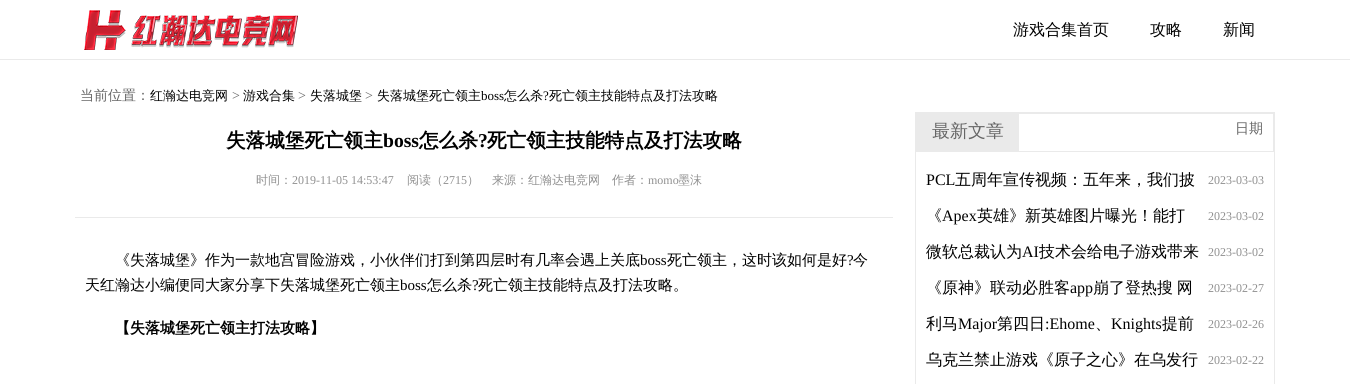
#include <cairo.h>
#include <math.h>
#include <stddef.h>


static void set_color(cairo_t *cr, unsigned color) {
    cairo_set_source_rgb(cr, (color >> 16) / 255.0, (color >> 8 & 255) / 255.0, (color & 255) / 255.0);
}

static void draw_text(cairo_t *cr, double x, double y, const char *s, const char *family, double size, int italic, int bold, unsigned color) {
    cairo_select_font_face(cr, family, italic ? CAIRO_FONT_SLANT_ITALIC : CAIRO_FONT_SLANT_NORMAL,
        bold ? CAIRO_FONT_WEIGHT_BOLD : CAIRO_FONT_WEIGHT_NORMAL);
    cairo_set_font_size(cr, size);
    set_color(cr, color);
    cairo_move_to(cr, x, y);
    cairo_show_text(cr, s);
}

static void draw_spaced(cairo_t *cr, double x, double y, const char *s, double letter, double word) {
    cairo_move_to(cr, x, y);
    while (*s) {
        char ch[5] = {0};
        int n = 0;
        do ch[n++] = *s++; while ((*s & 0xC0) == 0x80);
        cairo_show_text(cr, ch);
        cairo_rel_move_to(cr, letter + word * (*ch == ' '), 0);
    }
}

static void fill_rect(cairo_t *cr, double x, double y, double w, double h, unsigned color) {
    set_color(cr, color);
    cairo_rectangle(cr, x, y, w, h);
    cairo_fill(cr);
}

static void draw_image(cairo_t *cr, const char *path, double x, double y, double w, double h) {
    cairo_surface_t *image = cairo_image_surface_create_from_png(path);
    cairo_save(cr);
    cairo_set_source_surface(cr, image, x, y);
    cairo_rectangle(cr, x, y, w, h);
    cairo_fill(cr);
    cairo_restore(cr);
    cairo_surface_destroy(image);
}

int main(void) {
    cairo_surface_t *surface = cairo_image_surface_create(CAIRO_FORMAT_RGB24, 1350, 384);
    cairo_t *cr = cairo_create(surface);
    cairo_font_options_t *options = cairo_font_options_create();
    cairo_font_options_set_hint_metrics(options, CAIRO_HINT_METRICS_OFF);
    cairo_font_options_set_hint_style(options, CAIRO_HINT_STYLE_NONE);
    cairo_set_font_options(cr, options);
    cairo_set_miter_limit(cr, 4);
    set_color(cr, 0xFFFFFF);
    cairo_paint(cr);
    fill_rect(cr, 0, 59, 1350, 1, 0xEAEAEA);
    draw_image(cr, "assets/img1.png", 84, 10, 214, 40);
    draw_text(cr, 1013, 35, "游戏合集首页", "WenQuanYi Zen Hei Medium", 16, 0, 0, 0x000000);
    draw_text(cr, 1150, 35, "攻略", "WenQuanYi Zen Hei Medium", 16, 0, 0, 0x000000);
    draw_text(cr, 1223, 35, "新闻", "WenQuanYi Zen Hei Medium", 16, 0, 0, 0x000000);
    draw_text(cr, 80, 100, "当前位置：", "WenQuanYi Zen Hei Medium", 14, 0, 0, 0x666666);
    draw_text(cr, 150, 100, "红瀚达电竞网", "WenQuanYi Zen Hei Medium", 13, 0, 0, 0x000000);
    draw_text(cr, 232, 100, ">", "Liberation Serif", 14, 0, 0, 0x666666);
    draw_text(cr, 243, 100, "游戏合集", "WenQuanYi Zen Hei Medium", 13, 0, 0, 0x000000);
    draw_text(cr, 298, 100, ">", "Liberation Serif", 14, 0, 0, 0x666666);
    draw_text(cr, 310, 100, "失落城堡", "WenQuanYi Zen Hei Medium", 13, 0, 0, 0x000000);
    draw_text(cr, 365, 100, ">", "Liberation Serif", 14, 0, 0, 0x666666);
    draw_text(cr, 377, 100, "失落城堡死亡领主", "WenQuanYi Zen Hei Medium", 13, 0, 0, 0x000000);
    draw_text(cr, 481, 100, "boss", "Liberation Serif", 13, 0, 0, 0x000000);
    draw_text(cr, 504, 100, "怎么杀", "WenQuanYi Zen Hei Medium", 13, 0, 0, 0x000000);
    draw_text(cr, 543, 100, "?", "Liberation Serif", 13, 0, 0, 0x000000);
    draw_text(cr, 549, 100, "死亡领主技能特点及打法攻略", "WenQuanYi Zen Hei Medium", 13, 0, 0, 0x000000);
    fill_rect(cr, 75, 217, 818, 1, 0xEAEAEA);
    draw_text(cr, 226, 147, "失落城堡死亡领主", "WenQuanYi Zen Hei", 19.6, 0, 1, 0x000000);
    draw_text(cr, 383, 147, "boss", "Liberation Serif", 19.6, 0, 1, 0x000000);
    draw_text(cr, 419, 147, "怎么杀", "WenQuanYi Zen Hei", 19.6, 0, 1, 0x000000);
    draw_text(cr, 478, 147, "?", "Liberation Serif", 19.6, 0, 1, 0x000000);
    draw_text(cr, 487, 147, "死亡领主技能特点及打法攻略", "WenQuanYi Zen Hei", 19.6, 0, 1, 0x000000);
    draw_text(cr, 256, 184, "时间：", "WenQuanYi Zen Hei Medium", 12, 0, 0, 0x909090);
    draw_text(cr, 292, 184, "2019-11-05 14:53:47", "Liberation Serif", 12, 0, 0, 0x909090);
    draw_text(cr, 407, 184, "阅读（", "WenQuanYi Zen Hei Medium", 12, 0, 0, 0x909090);
    draw_text(cr, 443, 184, "2715", "Liberation Serif", 12, 0, 0, 0x909090);
    draw_text(cr, 467, 184, "）", "WenQuanYi Zen Hei Medium", 12, 0, 0, 0x909090);
    draw_text(cr, 492, 184, "来源：红瀚达电竞网", "WenQuanYi Zen Hei Medium", 12, 0, 0, 0x909090);
    draw_text(cr, 612, 184, "作者：", "WenQuanYi Zen Hei Medium", 12, 0, 0, 0x909090);
    draw_text(cr, 648, 184, "momo", "Liberation Serif", 12, 0, 0, 0x909090);
    draw_text(cr, 678, 184, "墨沫", "WenQuanYi Zen Hei Medium", 12, 0, 0, 0x909090);
    draw_text(cr, 115, 265, "《失落城堡》作为一款地宫冒险游戏，小伙伴们打到第四层时有几率会遇上关底", "WenQuanYi Zen Hei Medium", 15, 0, 0, 0x000000);
    draw_text(cr, 640, 265, "boss", "Liberation Serif", 15, 0, 0, 0x000000);
    draw_text(cr, 667, 265, "死亡领主，这时该如何是好", "WenQuanYi Zen Hei Medium", 15, 0, 0, 0x000000);
    draw_text(cr, 847, 265, "?", "Liberation Serif", 15, 0, 0, 0x000000);
    draw_text(cr, 853, 265, "今", "WenQuanYi Zen Hei Medium", 15, 0, 0, 0x000000);
    draw_text(cr, 85, 290, "天红瀚达小编便同大家分享下失落城堡死亡领主", "WenQuanYi Zen Hei Medium", 15, 0, 0, 0x000000);
    draw_text(cr, 400, 290, "boss", "Liberation Serif", 15, 0, 0, 0x000000);
    draw_text(cr, 427, 290, "怎么杀", "WenQuanYi Zen Hei Medium", 15, 0, 0, 0x000000);
    draw_text(cr, 472, 290, "?", "Liberation Serif", 15, 0, 0, 0x000000);
    draw_text(cr, 478, 290, "死亡领主技能特点及打法攻略。", "WenQuanYi Zen Hei Medium", 15, 0, 0, 0x000000);
    draw_text(cr, 115, 333, "【失落城堡死亡领主打法攻略】", "WenQuanYi Zen Hei", 15, 0, 1, 0x000000);
    cairo_rectangle(cr, 915.5, 112.5, 359, 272);
    set_color(cr, 0xEAEAEA);
    cairo_set_line_width(cr, 1);
    cairo_stroke(cr);
    cairo_rectangle(cr, 916.5, 113.5, 357, 38);
    cairo_stroke(cr);
    fill_rect(cr, 917, 114, 102, 37, 0xEAEAEA);
    draw_text(cr, 932, 137, "最新文章", "WenQuanYi Zen Hei Medium", 18, 0, 0, 0x666666);
    draw_text(cr, 1235, 133, "日期", "WenQuanYi Zen Hei Medium", 14, 0, 0, 0x666666);
    draw_text(cr, 926, 185, "PCL", "Liberation Serif", 16, 0, 0, 0x000000);
    draw_text(cr, 955, 185, "五周年宣传视频：五年来，我们披", "WenQuanYi Zen Hei Medium", 16, 0, 0, 0x000000);
    draw_text(cr, 1208, 184, "2023-03-03", "Liberation Serif", 12, 0, 0, 0x909090);
    draw_text(cr, 926, 221, "《", "WenQuanYi Zen Hei Medium", 16, 0, 0, 0x000000);
    draw_text(cr, 942, 221, "Apex", "Liberation Serif", 16, 0, 0, 0x000000);
    draw_text(cr, 977, 221, "英雄》新英雄图片曝光！能打", "WenQuanYi Zen Hei Medium", 16, 0, 0, 0x000000);
    draw_text(cr, 1208, 220, "2023-03-02", "Liberation Serif", 12, 0, 0, 0x909090);
    draw_text(cr, 926, 257, "微软总裁认为", "WenQuanYi Zen Hei Medium", 16, 0, 0, 0x000000);
    draw_text(cr, 1022, 257, "AI", "Liberation Serif", 16, 0, 0, 0x000000);
    draw_text(cr, 1039, 257, "技术会给电子游戏带来", "WenQuanYi Zen Hei Medium", 16, 0, 0, 0x000000);
    draw_text(cr, 1208, 256, "2023-03-02", "Liberation Serif", 12, 0, 0, 0x909090);
    draw_text(cr, 926, 293, "《原神》联动必胜客", "WenQuanYi Zen Hei Medium", 16, 0, 0, 0x000000);
    draw_text(cr, 1070, 293, "app", "Liberation Serif", 16, 0, 0, 0x000000);
    cairo_select_font_face(cr, "WenQuanYi Zen Hei Medium", CAIRO_FONT_SLANT_NORMAL, CAIRO_FONT_WEIGHT_NORMAL);
    draw_spaced(cr, 1093, 293, "崩了登热搜 网", 0, -1);
    draw_text(cr, 1208, 292, "2023-02-27", "Liberation Serif", 12, 0, 0, 0x909090);
    draw_text(cr, 926, 329, "利马", "WenQuanYi Zen Hei Medium", 16, 0, 0, 0x000000);
    draw_text(cr, 958, 329, "Major", "Liberation Serif", 16, 0, 0, 0x000000);
    draw_text(cr, 997, 329, "第四日", "WenQuanYi Zen Hei Medium", 16, 0, 0, 0x000000);
    draw_text(cr, 1045, 329, ":Ehome", "Liberation Serif", 16, 0, 0, 0x000000);
    draw_text(cr, 1095, 329, "、", "WenQuanYi Zen Hei Medium", 16, 0, 0, 0x000000);
    draw_text(cr, 1111, 329, "Knights", "Liberation Serif", 16, 0, 0, 0x000000);
    draw_text(cr, 1162, 329, "提前", "WenQuanYi Zen Hei Medium", 16, 0, 0, 0x000000);
    draw_text(cr, 1208, 328, "2023-02-26", "Liberation Serif", 12, 0, 0, 0x909090);
    draw_text(cr, 926, 365, "乌克兰禁止游戏《原子之心》在乌发行", "WenQuanYi Zen Hei Medium", 16, 0, 0, 0x000000);
    draw_text(cr, 1208, 364, "2023-02-22", "Liberation Serif", 12, 0, 0, 0x909090);
    cairo_surface_write_to_png(surface, "output.png");
    cairo_font_options_destroy(options);
    cairo_destroy(cr);
    cairo_surface_destroy(surface);
    return 0;
}
